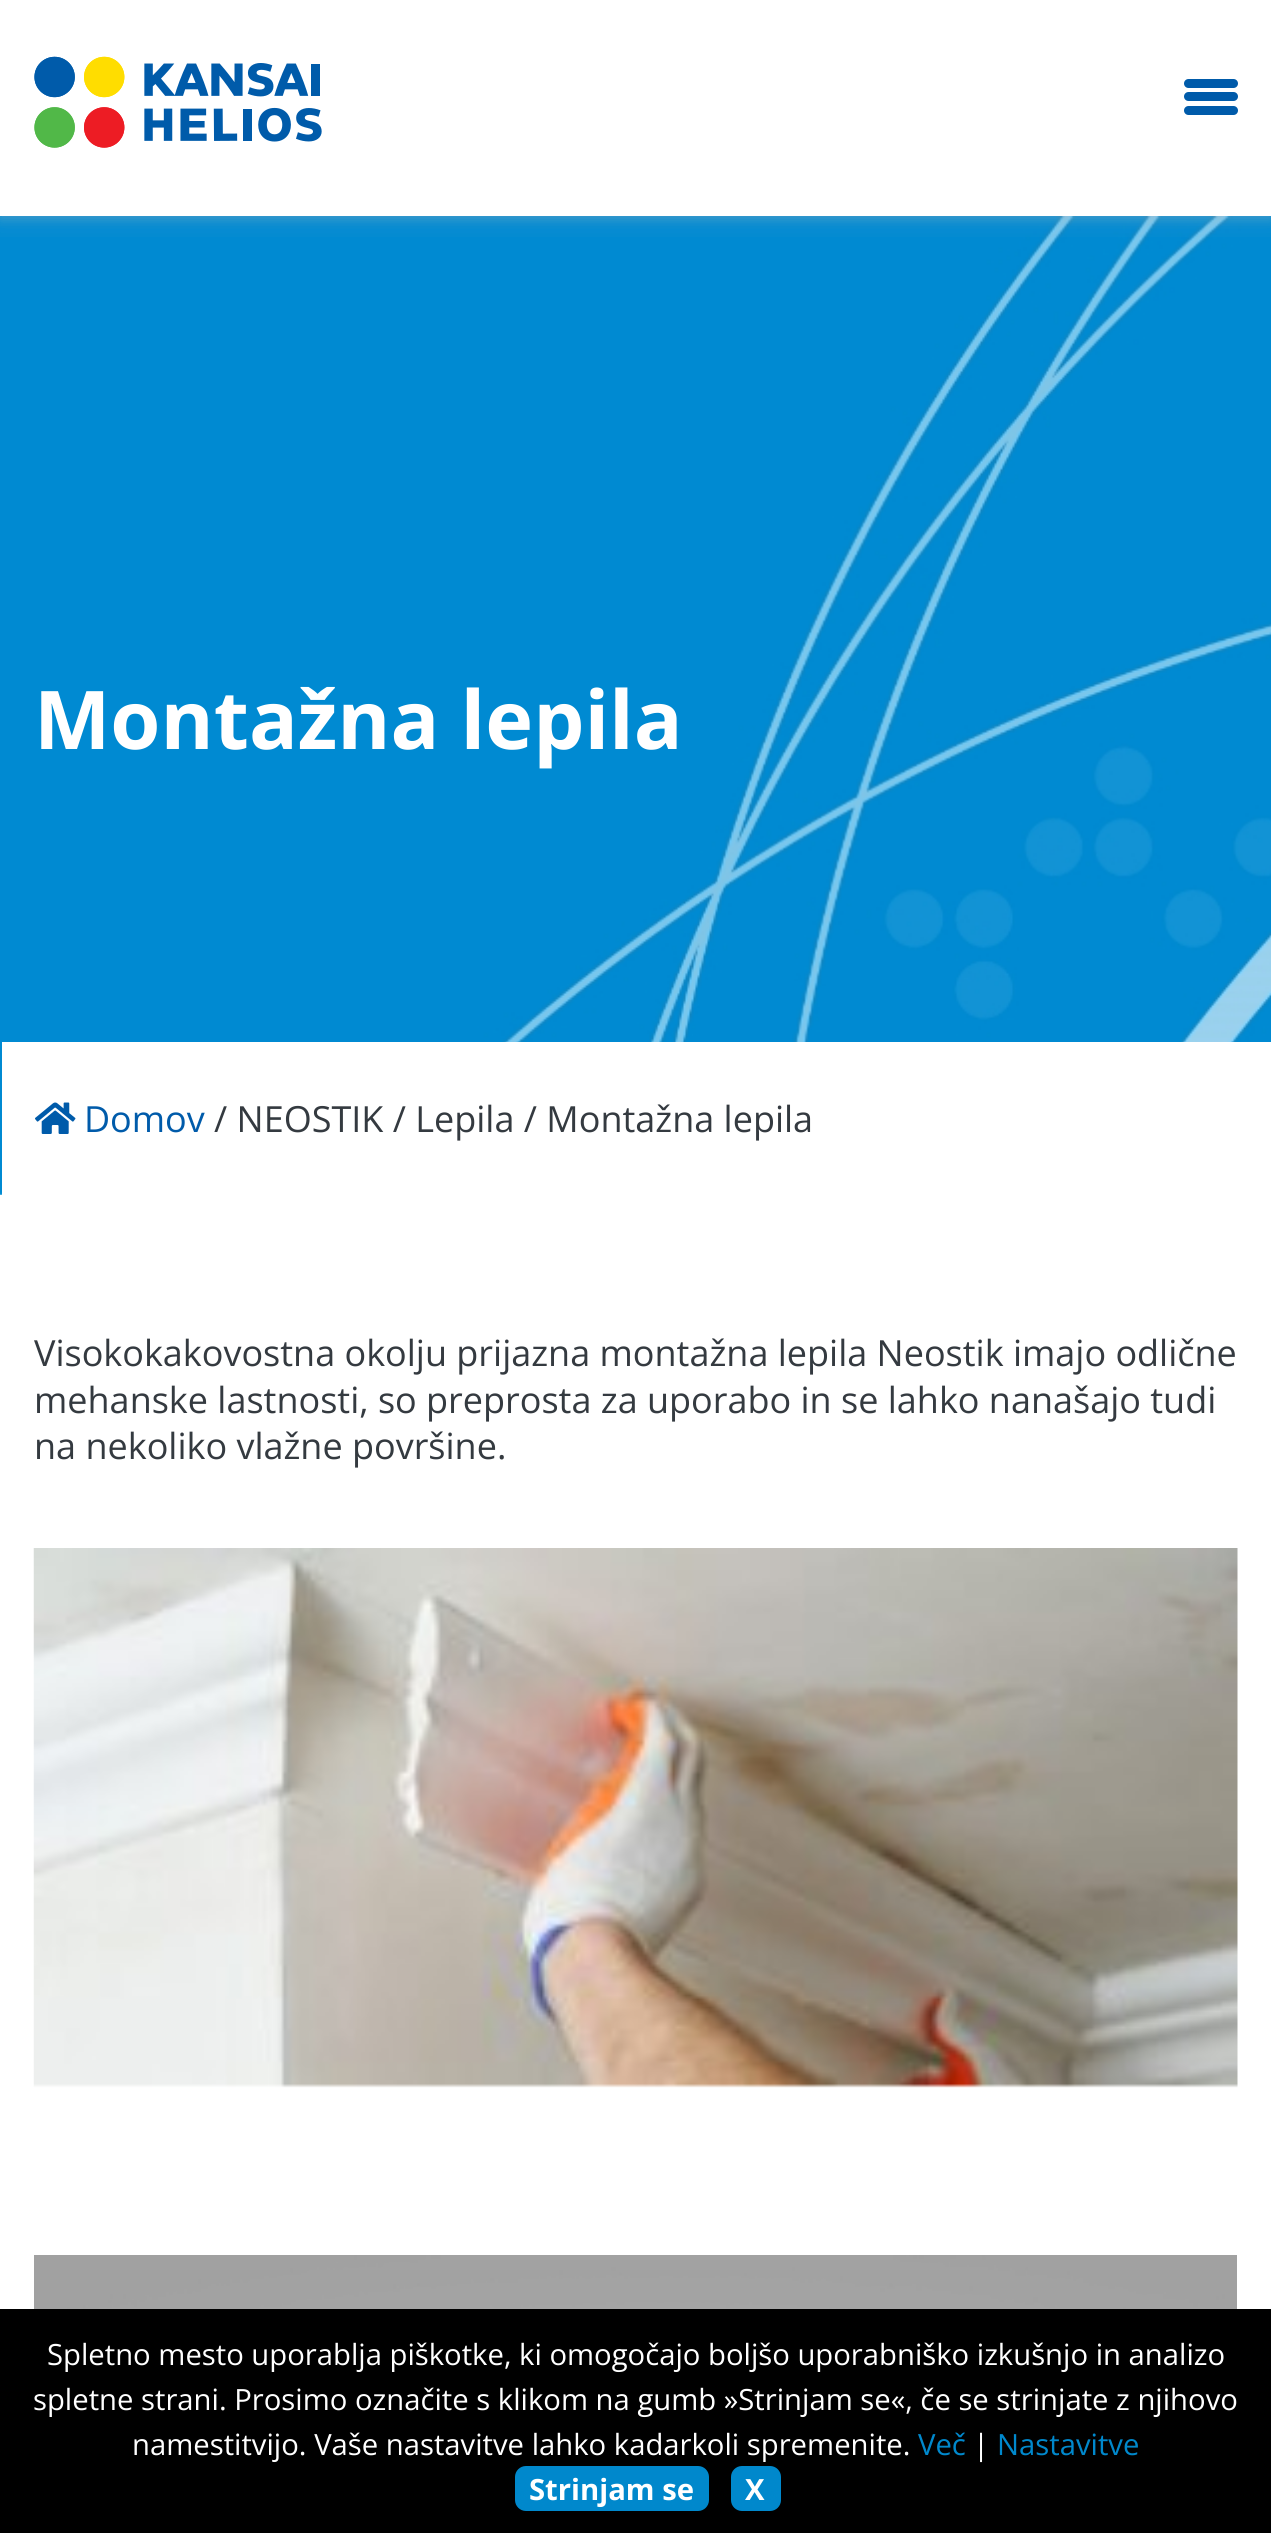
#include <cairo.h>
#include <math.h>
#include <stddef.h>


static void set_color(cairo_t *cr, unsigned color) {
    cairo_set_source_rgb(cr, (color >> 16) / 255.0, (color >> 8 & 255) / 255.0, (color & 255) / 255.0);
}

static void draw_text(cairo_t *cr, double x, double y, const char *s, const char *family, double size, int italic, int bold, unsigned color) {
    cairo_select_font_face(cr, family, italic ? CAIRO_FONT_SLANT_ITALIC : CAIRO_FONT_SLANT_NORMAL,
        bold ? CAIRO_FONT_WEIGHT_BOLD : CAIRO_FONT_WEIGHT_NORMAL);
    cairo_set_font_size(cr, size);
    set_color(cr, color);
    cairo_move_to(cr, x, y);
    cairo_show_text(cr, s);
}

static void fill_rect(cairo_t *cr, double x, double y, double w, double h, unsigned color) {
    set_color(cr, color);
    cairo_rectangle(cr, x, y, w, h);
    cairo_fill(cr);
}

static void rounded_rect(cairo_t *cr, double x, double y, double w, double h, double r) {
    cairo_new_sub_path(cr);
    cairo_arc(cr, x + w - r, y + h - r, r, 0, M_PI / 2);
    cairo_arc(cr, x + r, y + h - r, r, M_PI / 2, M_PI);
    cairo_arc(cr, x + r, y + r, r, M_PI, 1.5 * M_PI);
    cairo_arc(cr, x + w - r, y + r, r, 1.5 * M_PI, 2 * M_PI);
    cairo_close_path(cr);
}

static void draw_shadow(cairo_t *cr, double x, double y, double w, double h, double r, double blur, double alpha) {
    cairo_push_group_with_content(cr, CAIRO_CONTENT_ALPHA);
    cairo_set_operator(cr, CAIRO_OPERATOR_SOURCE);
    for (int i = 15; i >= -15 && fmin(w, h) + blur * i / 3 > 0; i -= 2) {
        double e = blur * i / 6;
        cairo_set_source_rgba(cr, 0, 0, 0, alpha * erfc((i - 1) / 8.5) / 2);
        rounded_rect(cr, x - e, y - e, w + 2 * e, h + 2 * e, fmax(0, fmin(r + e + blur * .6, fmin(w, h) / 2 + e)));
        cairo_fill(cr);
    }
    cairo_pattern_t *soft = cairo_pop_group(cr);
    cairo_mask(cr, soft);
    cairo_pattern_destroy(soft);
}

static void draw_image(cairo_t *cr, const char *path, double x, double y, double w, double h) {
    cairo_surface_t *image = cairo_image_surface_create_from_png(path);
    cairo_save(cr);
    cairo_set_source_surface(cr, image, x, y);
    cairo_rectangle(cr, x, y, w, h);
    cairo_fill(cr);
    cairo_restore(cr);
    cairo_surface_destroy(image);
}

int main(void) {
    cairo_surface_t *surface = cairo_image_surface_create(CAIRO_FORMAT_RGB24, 1271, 2533);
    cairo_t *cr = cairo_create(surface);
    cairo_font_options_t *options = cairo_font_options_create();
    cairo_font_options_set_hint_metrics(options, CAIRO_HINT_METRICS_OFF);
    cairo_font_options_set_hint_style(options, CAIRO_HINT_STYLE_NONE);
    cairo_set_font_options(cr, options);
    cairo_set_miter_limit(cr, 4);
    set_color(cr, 0xFFFFFF);
    cairo_paint(cr);
    draw_image(cr, "assets/img2.png", 0, 216, 1271, 979);
    cairo_save(cr);
    cairo_rectangle(cr, 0, 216, 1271, 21);
    cairo_clip(cr);
    set_color(cr, 0xB0B6BA);
    draw_shadow(cr, -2, 0, 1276, 221, 0, 14.5, 0.15);
    cairo_restore(cr);
    cairo_save(cr);
    cairo_rectangle(cr, 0, 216, 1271, 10);
    cairo_clip(cr);
    set_color(cr, 0xB0B6BA);
    draw_shadow(cr, 0, 2, 1271, 216, 0, 5.5, 0.3);
    cairo_restore(cr);
    draw_image(cr, "assets/img1.png", 34, 56, 288, 92);
    set_color(cr, 0x005BAA);
    rounded_rect(cr, 1184, 79, 54, 9, 4.5);
    cairo_fill(cr);
    rounded_rect(cr, 1184, 92, 54, 9, 4.5);
    cairo_fill(cr);
    rounded_rect(cr, 1184, 106, 54, 9, 4.5);
    cairo_fill(cr);
    draw_text(cr, 34, 749, "Montažna lepila", "Open Sans", 81, 0, 1, 0xFFFFFF);
    fill_rect(cr, 2, 1042, 1269, 153, 0xFFFFFF);
    draw_image(cr, "assets/img3.png", 35, 1102, 41, 32);
    draw_text(cr, 84, 1132, "Domov", "Open Sans", 36, 0, 0, 0x005BAA);
    draw_text(cr, 214, 1132, "/ NEOSTIK / Lepila / Montažna lepila", "Open Sans", 36, 0, 0, 0x343A40);
    draw_text(cr, 34, 1366, "Visokokakovostna okolju prijazna montažna lepila Neostik imajo odlične", "Open Sans", 36, 0, 0, 0x343A40);
    draw_text(cr, 34, 1413, "mehanske lastnosti, so preprosta za uporabo in se lahko nanašajo tudi", "Open Sans", 36, 0, 0, 0x343A40);
    draw_text(cr, 34, 1459, "na nekoliko vlažne površine.", "Open Sans", 36, 0, 0, 0x343A40);
    draw_image(cr, "assets/img4.png", 33, 1548, 1205, 540);
    draw_image(cr, "assets/img5.png", 34, 2255, 1203, 54);
    fill_rect(cr, 0, 2309, 1271, 224, 0x000000);
    draw_text(cr, 47, 2365, "Spletno mesto uporablja piškotke, ki omogočajo boljšo uporabniško izkušnjo in analizo", "Open Sans", 29.25, 0, 0, 0xFFFFFF);
    draw_text(cr, 33, 2410, "spletne strani. Prosimo označite s klikom na gumb »Strinjam se«, če se strinjate z njihovo", "Open Sans", 29.25, 0, 0, 0xFFFFFF);
    draw_text(cr, 132, 2455, "namestitvijo. Vaše nastavitve lahko kadarkoli spremenite.", "Open Sans", 29.25, 0, 0, 0xFFFFFF);
    draw_text(cr, 918, 2455, "Več", "Open Sans", 29.25, 0, 0, 0x0088CC);
    draw_text(cr, 973, 2455, "|", "Open Sans", 29.25, 0, 0, 0xFFFFFF);
    draw_text(cr, 997, 2455, "Nastavitve", "Open Sans", 29.25, 0, 0, 0x0088CC);
    rounded_rect(cr, 515, 2466, 194, 45, 11);
    cairo_fill(cr);
    draw_text(cr, 529, 2500, "Strinjam se", "Open Sans", 29.25, 0, 1, 0xFFFFFF);
    set_color(cr, 0x0088CC);
    rounded_rect(cr, 731, 2466, 50, 45, 11);
    cairo_fill(cr);
    draw_text(cr, 745, 2500, "X", "Open Sans", 29.25, 0, 1, 0xFFFFFF);
    cairo_surface_write_to_png(surface, "output.png");
    cairo_font_options_destroy(options);
    cairo_destroy(cr);
    cairo_surface_destroy(surface);
    return 0;
}
